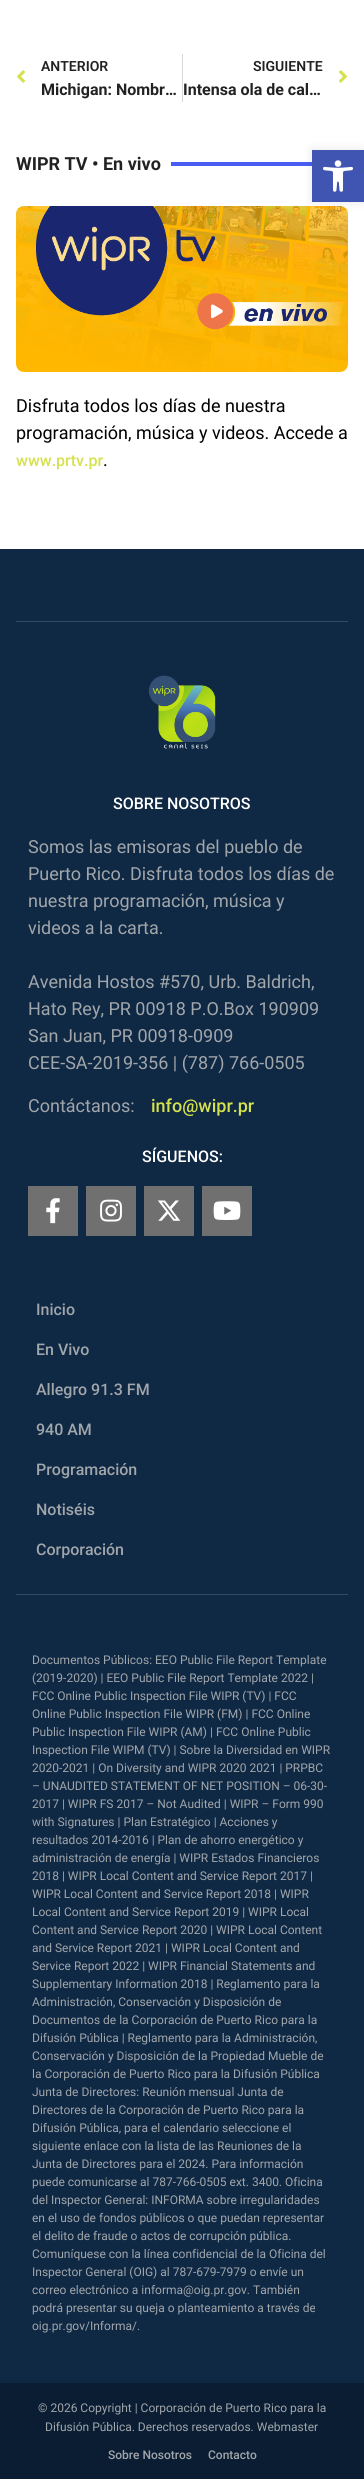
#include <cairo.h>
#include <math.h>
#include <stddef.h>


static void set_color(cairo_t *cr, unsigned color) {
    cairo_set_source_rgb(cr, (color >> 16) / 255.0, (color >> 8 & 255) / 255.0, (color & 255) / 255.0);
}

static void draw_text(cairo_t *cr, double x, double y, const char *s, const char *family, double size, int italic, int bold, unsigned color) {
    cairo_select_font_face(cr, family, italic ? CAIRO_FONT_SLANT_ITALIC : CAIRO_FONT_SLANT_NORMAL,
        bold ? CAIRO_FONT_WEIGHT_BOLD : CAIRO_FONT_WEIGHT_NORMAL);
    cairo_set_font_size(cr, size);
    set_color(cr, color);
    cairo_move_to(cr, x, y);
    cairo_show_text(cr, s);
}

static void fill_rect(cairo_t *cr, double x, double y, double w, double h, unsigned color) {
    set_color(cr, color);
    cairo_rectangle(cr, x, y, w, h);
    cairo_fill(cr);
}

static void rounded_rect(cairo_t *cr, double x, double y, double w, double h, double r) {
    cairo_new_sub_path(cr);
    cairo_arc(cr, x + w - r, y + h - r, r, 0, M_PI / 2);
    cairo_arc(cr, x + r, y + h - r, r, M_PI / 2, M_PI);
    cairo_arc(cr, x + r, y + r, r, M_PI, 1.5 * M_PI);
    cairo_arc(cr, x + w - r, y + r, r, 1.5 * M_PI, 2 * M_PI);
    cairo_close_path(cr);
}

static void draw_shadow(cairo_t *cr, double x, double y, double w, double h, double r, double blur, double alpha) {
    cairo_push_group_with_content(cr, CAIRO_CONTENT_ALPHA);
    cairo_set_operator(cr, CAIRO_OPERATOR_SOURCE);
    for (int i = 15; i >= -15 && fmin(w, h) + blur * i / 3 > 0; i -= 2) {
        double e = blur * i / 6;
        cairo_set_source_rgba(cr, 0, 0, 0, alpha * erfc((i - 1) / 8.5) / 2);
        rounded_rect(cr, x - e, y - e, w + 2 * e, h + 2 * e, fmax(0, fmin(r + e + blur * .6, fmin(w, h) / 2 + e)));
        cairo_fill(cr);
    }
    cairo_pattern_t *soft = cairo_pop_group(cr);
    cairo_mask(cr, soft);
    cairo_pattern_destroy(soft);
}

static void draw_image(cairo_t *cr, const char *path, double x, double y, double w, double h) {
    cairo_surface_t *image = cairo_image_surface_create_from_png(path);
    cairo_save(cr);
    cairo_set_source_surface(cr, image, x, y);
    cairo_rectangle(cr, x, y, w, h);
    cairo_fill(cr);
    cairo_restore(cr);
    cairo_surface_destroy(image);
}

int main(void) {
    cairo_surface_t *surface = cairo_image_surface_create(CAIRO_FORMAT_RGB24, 364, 2479);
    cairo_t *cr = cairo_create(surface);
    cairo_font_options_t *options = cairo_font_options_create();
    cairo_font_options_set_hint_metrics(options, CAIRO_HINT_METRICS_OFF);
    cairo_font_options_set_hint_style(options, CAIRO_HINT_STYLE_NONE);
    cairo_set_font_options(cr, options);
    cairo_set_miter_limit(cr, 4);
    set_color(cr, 0xFFFFFF);
    cairo_paint(cr);
    draw_image(cr, "assets/img1.png", 17, 70, 8, 13);
    draw_text(cr, 41, 71, "ANTERIOR", "Roboto SemiBold", 14, 0, 0, 0x222222);
    draw_text(cr, 41, 95, "Michigan: Nombr…", "Roboto", 16, 0, 1, 0x222222);
    fill_rect(cr, 182, 54, 1, 48, 0xD5D8DC);
    draw_text(cr, 253, 71, "SIGUIENTE", "Roboto SemiBold", 14, 0, 0, 0x222222);
    draw_text(cr, 183, 95, "Intensa ola de cal…", "Roboto", 16, 0, 1, 0x222222);
    draw_image(cr, "assets/img2.png", 339, 70, 8, 13);
    draw_text(cr, 16, 170, "WIPR TV • En vivo", "Roboto", 18, 0, 1, 0x222222);
    fill_rect(cr, 171, 162, 141, 4, 0x495DF2);
    draw_image(cr, "assets/img3.png", 16, 206, 332, 166);
    draw_text(cr, 16, 412, "Disfruta todos los días de nuestra", "Roboto", 18, 0, 0, 0x000000);
    draw_text(cr, 16, 439, "programación, música y videos. Accede a", "Roboto", 18, 0, 0, 0x000000);
    draw_text(cr, 16, 466, "www.prtv.pr", "Roboto Medium", 16, 0, 0, 0xD5E14D);
    draw_text(cr, 103, 466, ".", "Roboto", 18, 0, 0, 0x000000);
    set_color(cr, 0x000000);
    draw_shadow(cr, 312, 150, 52, 52, 0, 5, 0.1);
    fill_rect(cr, 312, 150, 52, 52, 0x4054B2);
    draw_image(cr, "assets/img4.png", 323, 160, 30, 32);
    fill_rect(cr, 0, 549, 364, 1834, 0x0F2844);
    fill_rect(cr, 16, 621, 332, 1, 0x354A62);
    draw_image(cr, "assets/img5.png", 148, 675, 68, 74);
    draw_text(cr, 113, 809, "SOBRE NOSOTROS", "Roboto Medium", 16, 0, 0, 0xFFFFFF);
    draw_text(cr, 28, 853, "Somos las emisoras del pueblo de", "Roboto", 18, 0, 0, 0xA1A6AA);
    draw_text(cr, 28, 880, "Puerto Rico. Disfruta todos los días de", "Roboto", 18, 0, 0, 0xA1A6AA);
    draw_text(cr, 28, 907, "nuestra programación, música y", "Roboto", 18, 0, 0, 0xA1A6AA);
    draw_text(cr, 28, 934, "videos a la carta.", "Roboto", 18, 0, 0, 0xA1A6AA);
    draw_text(cr, 28, 988, "Avenida Hostos #570, Urb. Baldrich,", "Roboto", 18, 0, 0, 0xA1A6AA);
    draw_text(cr, 28, 1015, "Hato Rey, PR 00918 P.O.Box 190909", "Roboto", 18, 0, 0, 0xA1A6AA);
    draw_text(cr, 28, 1042, "San Juan, PR 00918-0909", "Roboto", 18, 0, 0, 0xA1A6AA);
    draw_text(cr, 28, 1069, "CEE-SA-2019-356 | (787) 766-0505", "Roboto", 18, 0, 0, 0xA1A6AA);
    draw_text(cr, 28, 1112, "Contáctanos:", "Roboto", 18, 0, 0, 0xA1A6AA);
    draw_text(cr, 151, 1112, "info@wipr.pr", "Roboto Medium", 18, 0, 0, 0xD5E14D);
    draw_text(cr, 142, 1162, "SÍGUENOS:", "Roboto Medium", 16, 0, 0, 0xFFFFFF);
    fill_rect(cr, 28, 1186, 50, 50, 0x707070);
    draw_image(cr, "assets/img6.png", 46, 1198, 14, 26);
    fill_rect(cr, 86, 1186, 50, 50, 0x707070);
    draw_image(cr, "assets/img7.png", 100, 1199, 22, 23);
    fill_rect(cr, 144, 1186, 50, 50, 0x707070);
    draw_image(cr, "assets/img8.png", 158, 1200, 23, 21);
    fill_rect(cr, 202, 1186, 50, 50, 0x707070);
    draw_image(cr, "assets/img9.png", 213, 1201, 28, 19);
    draw_text(cr, 36, 1315, "Inicio", "Roboto Medium", 16, 0, 0, 0xA1A6AA);
    draw_text(cr, 36, 1355, "En Vivo", "Roboto Medium", 16, 0, 0, 0xA1A6AA);
    draw_text(cr, 36, 1395, "Allegro 91.3 FM", "Roboto Medium", 16, 0, 0, 0xA1A6AA);
    draw_text(cr, 36, 1435, "940 AM", "Roboto Medium", 16, 0, 0, 0xA1A6AA);
    draw_text(cr, 36, 1475, "Programación", "Roboto Medium", 16, 0, 0, 0xA1A6AA);
    draw_text(cr, 36, 1515, "Notiséis", "Roboto Medium", 16, 0, 0, 0xA1A6AA);
    draw_text(cr, 36, 1555, "Corporación", "Roboto Medium", 16, 0, 0, 0xA1A6AA);
    fill_rect(cr, 16, 1594, 332, 1, 0x354A62);
    draw_text(cr, 32, 1664, "Documentos Públicos: EEO Public File Report Template", "Roboto", 12, 0, 0, 0xA1A6AA);
    draw_text(cr, 32, 1682, "(2019-2020) | EEO Public File Report Template 2022 |", "Roboto", 12, 0, 0, 0xA1A6AA);
    draw_text(cr, 32, 1700, "FCC Online Public Inspection File WIPR (TV) | FCC", "Roboto", 12, 0, 0, 0xA1A6AA);
    draw_text(cr, 32, 1718, "Online Public Inspection File WIPR (FM) | FCC Online", "Roboto", 12, 0, 0, 0xA1A6AA);
    draw_text(cr, 32, 1736, "Public Inspection File WIPR (AM) | FCC Online Public", "Roboto", 12, 0, 0, 0xA1A6AA);
    draw_text(cr, 32, 1754, "Inspection File WIPM (TV) | Sobre la Diversidad en WIPR", "Roboto", 12, 0, 0, 0xA1A6AA);
    draw_text(cr, 32, 1772, "2020-2021 | On Diversity and WIPR 2020 2021 | PRPBC", "Roboto", 12, 0, 0, 0xA1A6AA);
    draw_text(cr, 32, 1790, "– UNAUDITED STATEMENT OF NET POSITION – 06-30-", "Roboto", 12, 0, 0, 0xA1A6AA);
    draw_text(cr, 32, 1808, "2017 | WIPR FS 2017 – Not Audited | WIPR – Form 990", "Roboto", 12, 0, 0, 0xA1A6AA);
    draw_text(cr, 32, 1826, "with Signatures | Plan Estratégico | Acciones y", "Roboto", 12, 0, 0, 0xA1A6AA);
    draw_text(cr, 32, 1844, "resultados 2014-2016 | Plan de ahorro energético y", "Roboto", 12, 0, 0, 0xA1A6AA);
    draw_text(cr, 32, 1862, "administración de energía | WIPR Estados Financieros", "Roboto", 12, 0, 0, 0xA1A6AA);
    draw_text(cr, 32, 1880, "2018 | WIPR Local Content and Service Report 2017 |", "Roboto", 12, 0, 0, 0xA1A6AA);
    draw_text(cr, 32, 1898, "WIPR Local Content and Service Report 2018 | WIPR", "Roboto", 12, 0, 0, 0xA1A6AA);
    draw_text(cr, 32, 1916, "Local Content and Service Report 2019 | WIPR Local", "Roboto", 12, 0, 0, 0xA1A6AA);
    draw_text(cr, 32, 1934, "Content and Service Report 2020 | WIPR Local Content", "Roboto", 12, 0, 0, 0xA1A6AA);
    draw_text(cr, 32, 1952, "and Service Report 2021 | WIPR Local Content and", "Roboto", 12, 0, 0, 0xA1A6AA);
    draw_text(cr, 32, 1970, "Service Report 2022 | WIPR Financial Statements and", "Roboto", 12, 0, 0, 0xA1A6AA);
    draw_text(cr, 32, 1988, "Supplementary Information 2018 | Reglamento para la", "Roboto", 12, 0, 0, 0xA1A6AA);
    draw_text(cr, 32, 2006, "Administración, Conservación y Disposición de", "Roboto", 12, 0, 0, 0xA1A6AA);
    draw_text(cr, 32, 2024, "Documentos de la Corporación de Puerto Rico para la", "Roboto", 12, 0, 0, 0xA1A6AA);
    draw_text(cr, 32, 2042, "Difusión Pública | Reglamento para la Administración,", "Roboto", 12, 0, 0, 0xA1A6AA);
    draw_text(cr, 32, 2060, "Conservación y Disposición de la Propiedad Mueble de", "Roboto", 12, 0, 0, 0xA1A6AA);
    draw_text(cr, 32, 2078, "la Corporación de Puerto Rico para la Difusión Pública", "Roboto", 12, 0, 0, 0xA1A6AA);
    draw_text(cr, 32, 2096, "Junta de Directores: Reunión mensual Junta de", "Roboto", 12, 0, 0, 0xA1A6AA);
    draw_text(cr, 32, 2114, "Directores de la Corporación de Puerto Rico para la", "Roboto", 12, 0, 0, 0xA1A6AA);
    draw_text(cr, 32, 2132, "Difusión Pública, para el calendario seleccione el", "Roboto", 12, 0, 0, 0xA1A6AA);
    draw_text(cr, 32, 2150, "siguiente enlace con la lista de las Reuniones de la", "Roboto", 12, 0, 0, 0xA1A6AA);
    draw_text(cr, 32, 2168, "Junta de Directores para el 2024. Para información", "Roboto", 12, 0, 0, 0xA1A6AA);
    draw_text(cr, 32, 2186, "puede comunicarse al 787-766-0505 ext. 3400. Oficina", "Roboto", 12, 0, 0, 0xA1A6AA);
    draw_text(cr, 32, 2204, "del Inspector General: INFORMA sobre irregularidades", "Roboto", 12, 0, 0, 0xA1A6AA);
    draw_text(cr, 32, 2222, "en el uso de fondos públicos o que puedan representar", "Roboto", 12, 0, 0, 0xA1A6AA);
    draw_text(cr, 32, 2240, "el delito de fraude o actos de corrupción pública.", "Roboto", 12, 0, 0, 0xA1A6AA);
    draw_text(cr, 32, 2258, "Comuníquese con la línea confidencial de la Oficina del", "Roboto", 12, 0, 0, 0xA1A6AA);
    draw_text(cr, 32, 2276, "Inspector General (OIG) al 787-679-7979 o envíe un", "Roboto", 12, 0, 0, 0xA1A6AA);
    draw_text(cr, 32, 2294, "correo electrónico a informa@oig.pr.gov. También", "Roboto", 12, 0, 0, 0xA1A6AA);
    draw_text(cr, 32, 2312, "podrá presentar su queja o planteamiento a través de", "Roboto", 12, 0, 0, 0xA1A6AA);
    draw_text(cr, 32, 2330, "oig.pr.gov/Informa/.", "Roboto", 12, 0, 0, 0xA1A6AA);
    fill_rect(cr, 0, 2383, 364, 96, 0x0A1D33);
    draw_text(cr, 38, 2412, "© 2026 Copyright | Corporación de Puerto Rico para la", "Roboto", 12, 0, 0, 0xA1A6AA);
    draw_text(cr, 45, 2431, "Difusión Pública. Derechos reservados. Webmaster", "Roboto", 12, 0, 0, 0xA1A6AA);
    draw_text(cr, 108, 2459, "Sobre Nosotros", "Roboto Medium", 12, 0, 0, 0xA1A6AA);
    draw_text(cr, 208, 2459, "Contacto", "Roboto Medium", 12, 0, 0, 0xA1A6AA);
    cairo_surface_write_to_png(surface, "output.png");
    cairo_font_options_destroy(options);
    cairo_destroy(cr);
    cairo_surface_destroy(surface);
    return 0;
}
